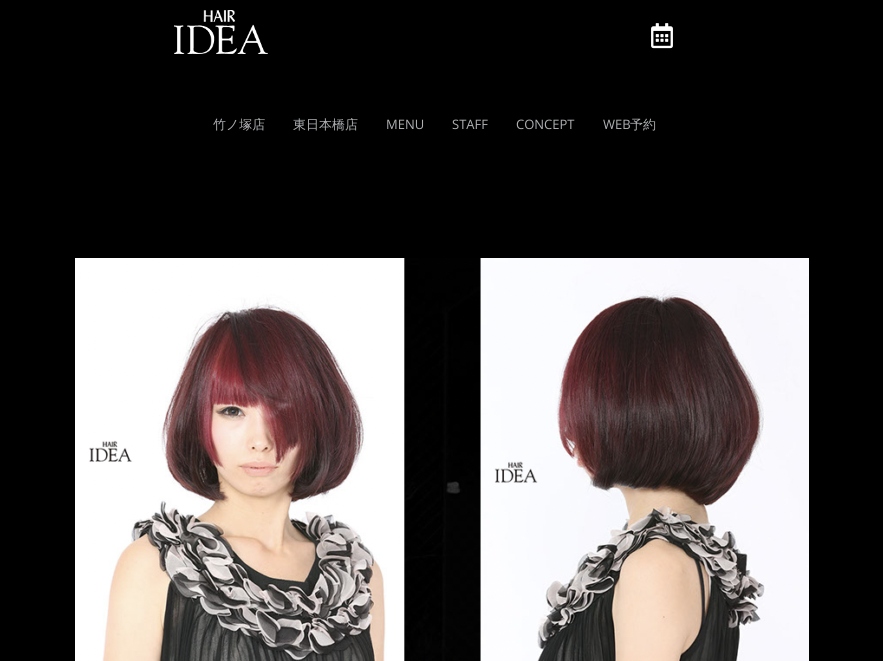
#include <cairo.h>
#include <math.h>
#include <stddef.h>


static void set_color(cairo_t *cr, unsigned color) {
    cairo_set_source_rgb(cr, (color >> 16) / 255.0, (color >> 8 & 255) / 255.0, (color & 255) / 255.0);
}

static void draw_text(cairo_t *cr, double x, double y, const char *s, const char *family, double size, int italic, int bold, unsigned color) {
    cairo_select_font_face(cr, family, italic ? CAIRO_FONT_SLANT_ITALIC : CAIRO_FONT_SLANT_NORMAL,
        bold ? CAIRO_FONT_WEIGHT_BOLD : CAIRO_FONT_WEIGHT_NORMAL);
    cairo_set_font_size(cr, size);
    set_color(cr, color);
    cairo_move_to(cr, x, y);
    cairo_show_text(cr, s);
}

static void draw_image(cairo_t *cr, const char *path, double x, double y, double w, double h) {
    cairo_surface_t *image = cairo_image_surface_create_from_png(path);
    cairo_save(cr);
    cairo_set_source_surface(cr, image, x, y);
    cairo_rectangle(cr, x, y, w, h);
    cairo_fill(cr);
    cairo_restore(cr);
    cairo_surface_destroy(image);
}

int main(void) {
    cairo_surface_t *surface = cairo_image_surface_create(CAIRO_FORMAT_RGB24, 883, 661);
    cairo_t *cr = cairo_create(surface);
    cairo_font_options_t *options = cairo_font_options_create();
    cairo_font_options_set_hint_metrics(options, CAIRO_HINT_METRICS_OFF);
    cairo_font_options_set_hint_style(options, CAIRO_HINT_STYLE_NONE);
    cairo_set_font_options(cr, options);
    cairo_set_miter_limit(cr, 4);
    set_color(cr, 0x000000);
    cairo_paint(cr);
    draw_image(cr, "assets/img1.png", 174, 10, 94, 44);
    draw_image(cr, "assets/img2.png", 651, 23, 22, 26);
    draw_text(cr, 213, 129, "竹ノ塚店", "WenQuanYi Zen Hei Medium", 13, 0, 0, 0xAEB0B3);
    draw_text(cr, 293, 129, "東日本橋店", "WenQuanYi Zen Hei Medium", 13, 0, 0, 0xAEB0B3);
    draw_text(cr, 386, 129, "MENU", "Open Sans", 13, 0, 0, 0xAEB0B3);
    draw_text(cr, 452, 129, "STAFF", "Open Sans", 13, 0, 0, 0xAEB0B3);
    draw_text(cr, 516, 129, "CONCEPT", "Open Sans", 13, 0, 0, 0xAEB0B3);
    draw_text(cr, 603, 129, "WEB", "Open Sans", 13, 0, 0, 0xAEB0B3);
    draw_text(cr, 630, 129, "予約", "WenQuanYi Zen Hei Medium", 13, 0, 0, 0xAEB0B3);
    draw_image(cr, "assets/img3.png", 75, 258, 734, 403);
    cairo_surface_write_to_png(surface, "output.png");
    cairo_font_options_destroy(options);
    cairo_destroy(cr);
    cairo_surface_destroy(surface);
    return 0;
}
